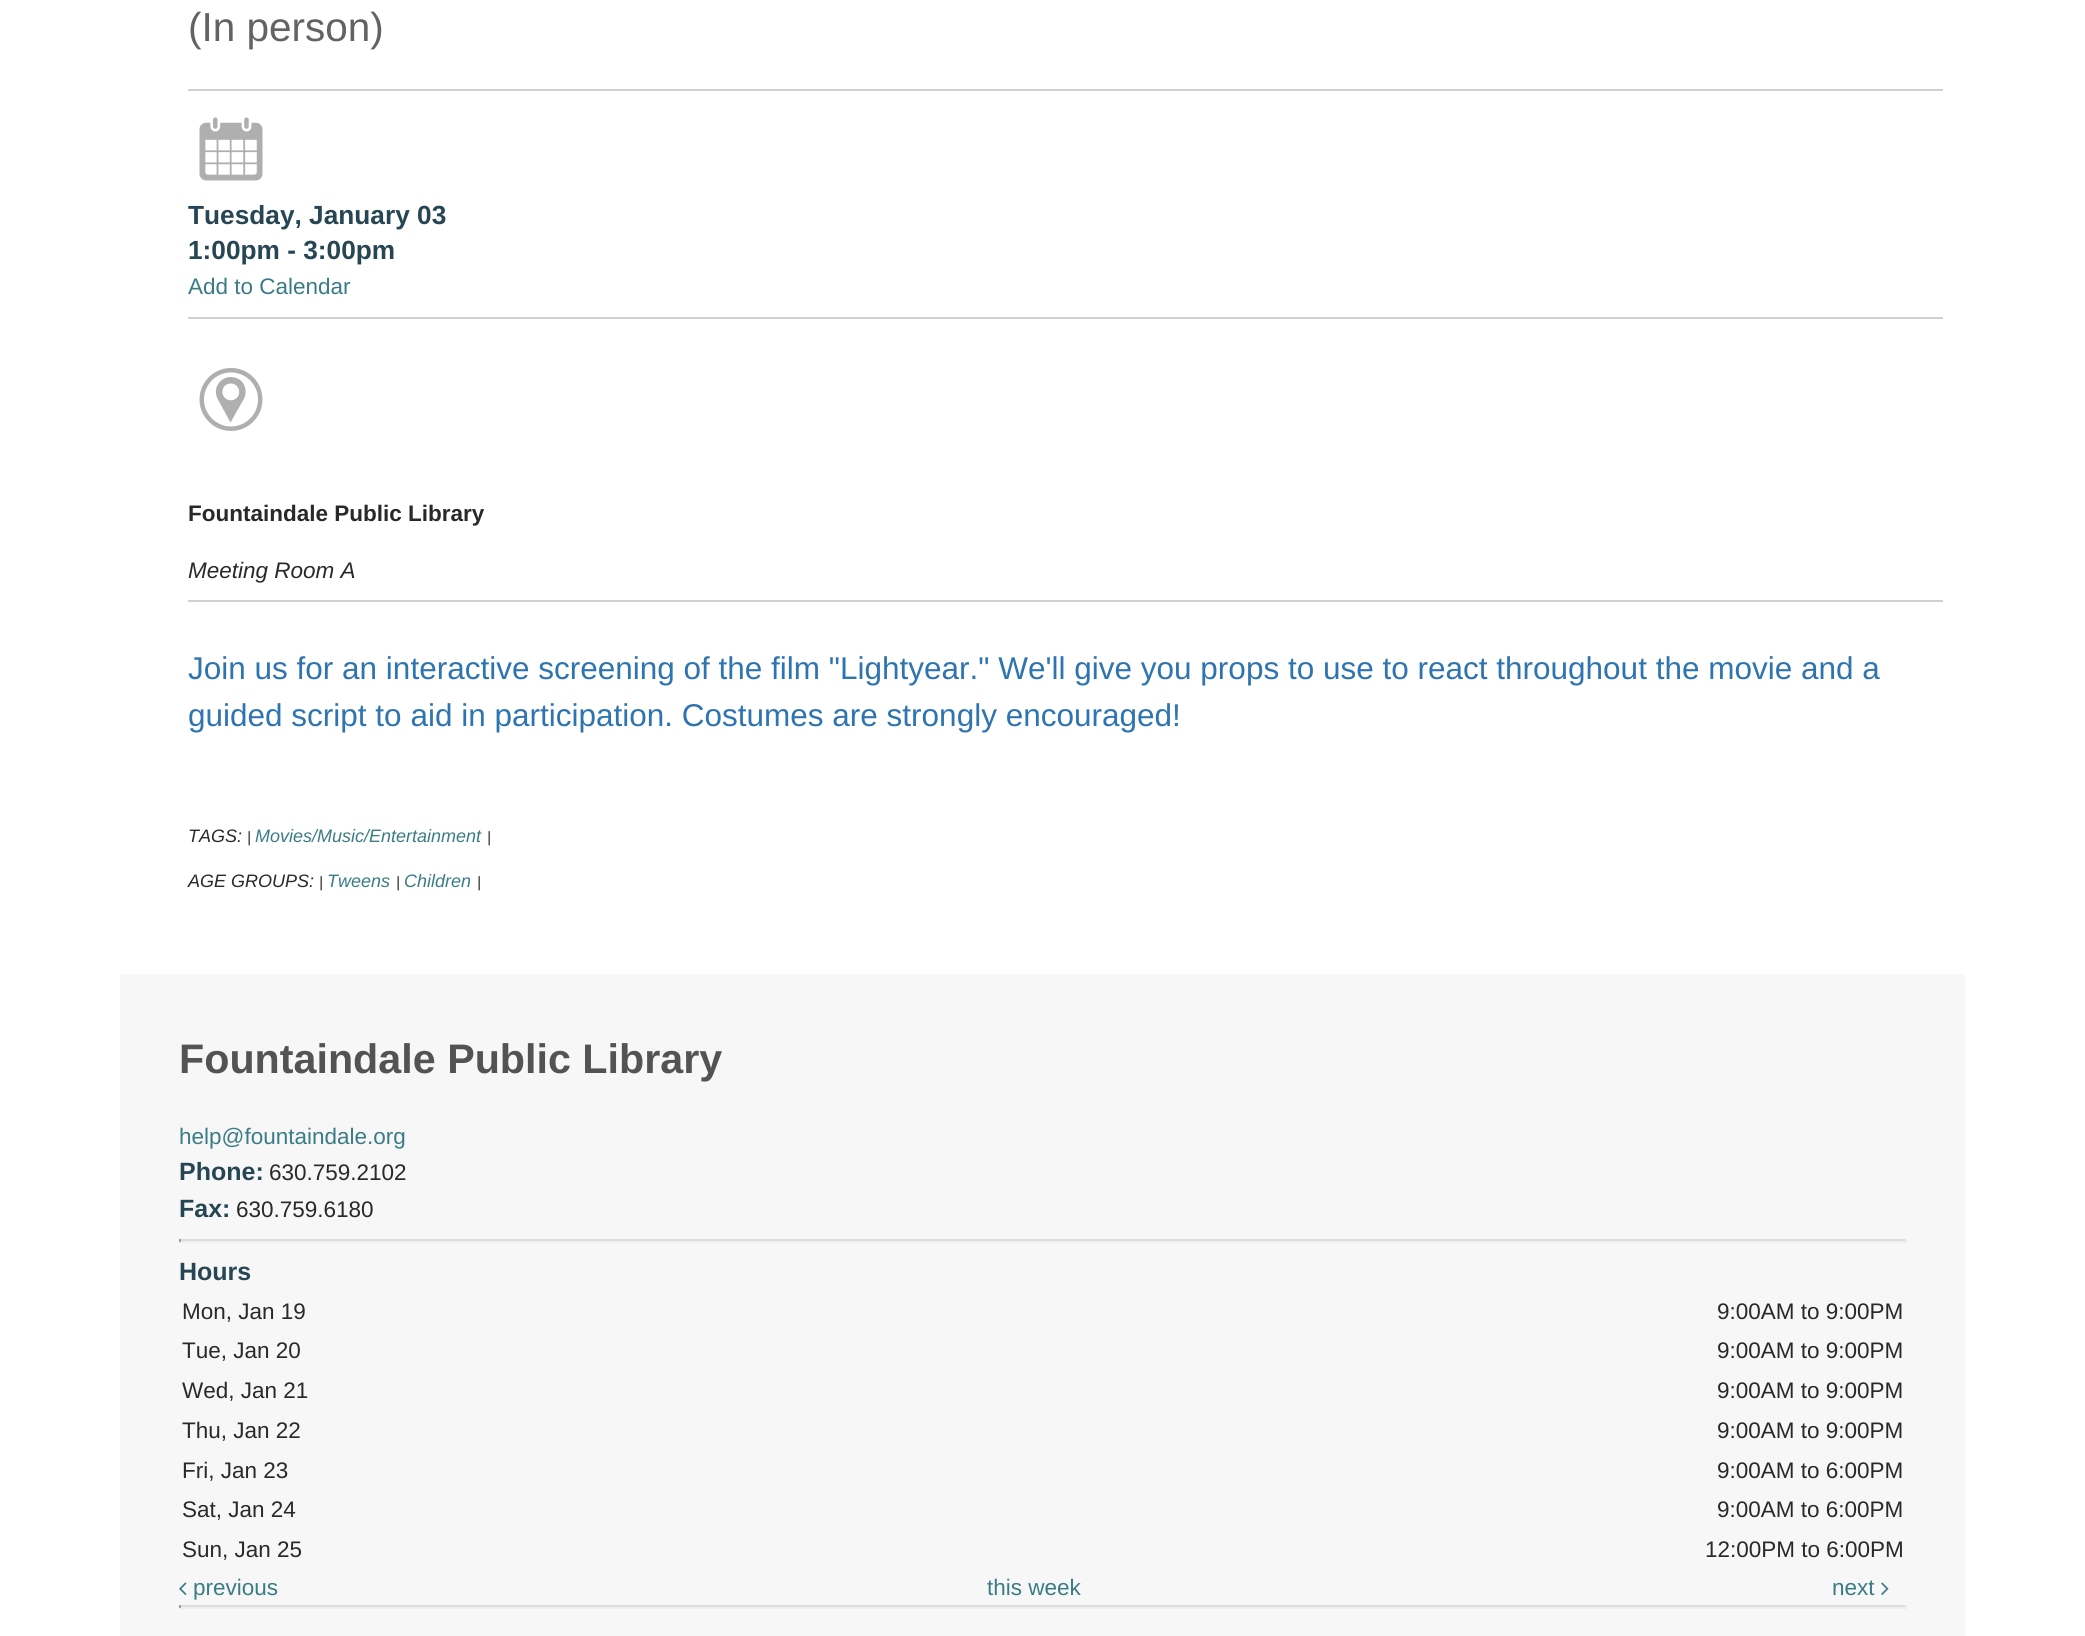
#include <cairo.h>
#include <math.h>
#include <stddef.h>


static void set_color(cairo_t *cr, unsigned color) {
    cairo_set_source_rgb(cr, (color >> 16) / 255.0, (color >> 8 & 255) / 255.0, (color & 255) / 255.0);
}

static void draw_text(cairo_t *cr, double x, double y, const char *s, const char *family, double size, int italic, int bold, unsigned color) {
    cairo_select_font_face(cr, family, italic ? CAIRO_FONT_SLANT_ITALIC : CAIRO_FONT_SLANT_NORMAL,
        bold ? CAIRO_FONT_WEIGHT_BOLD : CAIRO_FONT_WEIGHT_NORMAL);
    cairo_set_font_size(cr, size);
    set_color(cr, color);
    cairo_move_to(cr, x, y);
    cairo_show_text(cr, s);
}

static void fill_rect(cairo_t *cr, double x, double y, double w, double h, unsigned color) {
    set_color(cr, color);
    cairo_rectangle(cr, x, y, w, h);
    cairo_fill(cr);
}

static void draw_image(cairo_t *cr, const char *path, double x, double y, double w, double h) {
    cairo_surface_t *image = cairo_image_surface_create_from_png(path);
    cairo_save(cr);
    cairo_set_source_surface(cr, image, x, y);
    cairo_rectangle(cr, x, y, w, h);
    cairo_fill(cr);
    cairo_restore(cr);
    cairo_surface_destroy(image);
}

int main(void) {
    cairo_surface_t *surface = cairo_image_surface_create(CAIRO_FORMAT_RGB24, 2085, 1636);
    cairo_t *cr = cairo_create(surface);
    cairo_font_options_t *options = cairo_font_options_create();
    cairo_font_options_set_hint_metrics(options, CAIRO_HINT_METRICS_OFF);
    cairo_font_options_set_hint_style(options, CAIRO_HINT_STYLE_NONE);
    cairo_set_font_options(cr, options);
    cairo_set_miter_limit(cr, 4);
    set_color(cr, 0xFFFFFF);
    cairo_paint(cr);
    draw_text(cr, 188, 41, "(In person)", "Liberation Sans", 40.5, 0, 0, 0x636363);
    fill_rect(cr, 188, 89, 1755, 2, 0xD0D0D0);
    draw_image(cr, "assets/img1.png", 199, 117, 64, 64);
    draw_text(cr, 188, 224, "Tuesday, January 03", "Liberation Sans", 26.25, 0, 1, 0x264653);
    draw_text(cr, 188, 259, "1:00pm - 3:00pm", "Liberation Sans", 26.25, 0, 1, 0x264653);
    draw_text(cr, 188, 294, "Add to Calendar", "Liberation Sans", 22.5, 0, 0, 0x3A7C85);
    fill_rect(cr, 188, 317, 1755, 2, 0xD0D0D0);
    draw_image(cr, "assets/img2.png", 199, 368, 64, 63);
    draw_text(cr, 188, 521, "Fountaindale Public Library", "Liberation Sans", 22.5, 0, 1, 0x292929);
    draw_text(cr, 188, 578, "Meeting Room A", "Liberation Sans", 22.5, 1, 0, 0x292929);
    fill_rect(cr, 188, 600, 1755, 2, 0xD0D0D0);
    draw_text(cr, 188, 679, "Join us for an interactive screening of the film \"Lightyear.\" We'll give you props to use to react throughout the movie and a", "Liberation Sans", 31.5, 0, 0, 0x2E74B0);
    draw_text(cr, 188, 726, "guided script to aid in participation. Costumes are strongly encouraged!", "Liberation Sans", 31.5, 0, 0, 0x2E74B0);
    draw_text(cr, 188, 842, "TAGS:", "Liberation Sans", 18, 1, 0, 0x292929);
    draw_text(cr, 247, 842, "|", "Liberation Sans", 15, 1, 0, 0x292929);
    draw_text(cr, 255, 842, "Movies/Music/Entertainment", "Liberation Sans", 18, 1, 0, 0x3A7C85);
    draw_text(cr, 487, 842, "|", "Liberation Sans", 15, 1, 0, 0x292929);
    draw_text(cr, 188, 887, "AGE GROUPS:", "Liberation Sans", 18, 1, 0, 0x292929);
    draw_text(cr, 319, 887, "|", "Liberation Sans", 15, 1, 0, 0x292929);
    draw_text(cr, 327, 887, "Tweens", "Liberation Sans", 18, 1, 0, 0x3A7C85);
    draw_text(cr, 396, 887, "|", "Liberation Sans", 15, 1, 0, 0x292929);
    draw_text(cr, 404, 887, "Children", "Liberation Sans", 18, 1, 0, 0x3A7C85);
    draw_text(cr, 477, 887, "|", "Liberation Sans", 15, 1, 0, 0x292929);
    fill_rect(cr, 120, 974, 1845, 662, 0xF7F7F7);
    draw_text(cr, 179, 1073, "Fountaindale Public Library", "Liberation Sans", 41.25, 0, 1, 0x535353);
    draw_text(cr, 179, 1144, "help@fountaindale.org", "Liberation Sans", 22.5, 0, 0, 0x3A7C85);
    draw_text(cr, 179, 1180, "Phone:", "Liberation Sans", 25, 0, 1, 0x264653);
    draw_text(cr, 269, 1180, "630.759.2102", "Liberation Sans", 22.5, 0, 0, 0x292929);
    draw_text(cr, 179, 1217, "Fax:", "Liberation Sans", 25, 0, 1, 0x264653);
    draw_text(cr, 236, 1217, "630.759.6180", "Liberation Sans", 22.5, 0, 0, 0x292929);
    fill_rect(cr, 179, 1239, 1728, 2, 0xDCDCDC);
    fill_rect(cr, 1905, 1239, 2, 3, 0xEEEEEE);
    fill_rect(cr, 179, 1241, 1728, 2, 0xEEEEEE);
    fill_rect(cr, 179, 1239, 2, 3, 0x9F9F9F);
    draw_text(cr, 179, 1280, "Hours", "Liberation Sans", 25, 0, 1, 0x264653);
    draw_text(cr, 182, 1319, "Mon, Jan 19", "Liberation Sans", 22.5, 0, 0, 0x292929);
    draw_text(cr, 1717, 1319, "9:00AM to 9:00PM", "Liberation Sans", 22.5, 0, 0, 0x292929);
    draw_text(cr, 182, 1358, "Tue, Jan 20", "Liberation Sans", 22.5, 0, 0, 0x292929);
    draw_text(cr, 1717, 1358, "9:00AM to 9:00PM", "Liberation Sans", 22.5, 0, 0, 0x292929);
    draw_text(cr, 182, 1398, "Wed, Jan 21", "Liberation Sans", 22.5, 0, 0, 0x292929);
    draw_text(cr, 1717, 1398, "9:00AM to 9:00PM", "Liberation Sans", 22.5, 0, 0, 0x292929);
    draw_text(cr, 182, 1438, "Thu, Jan 22", "Liberation Sans", 22.5, 0, 0, 0x292929);
    draw_text(cr, 1717, 1438, "9:00AM to 9:00PM", "Liberation Sans", 22.5, 0, 0, 0x292929);
    draw_text(cr, 182, 1478, "Fri, Jan 23", "Liberation Sans", 22.5, 0, 0, 0x292929);
    draw_text(cr, 1717, 1478, "9:00AM to 6:00PM", "Liberation Sans", 22.5, 0, 0, 0x292929);
    draw_text(cr, 182, 1517, "Sat, Jan 24", "Liberation Sans", 22.5, 0, 0, 0x292929);
    draw_text(cr, 1717, 1517, "9:00AM to 6:00PM", "Liberation Sans", 22.5, 0, 0, 0x292929);
    draw_text(cr, 182, 1557, "Sun, Jan 25", "Liberation Sans", 22.5, 0, 0, 0x292929);
    draw_text(cr, 1705, 1557, "12:00PM to 6:00PM", "Liberation Sans", 22.5, 0, 0, 0x292929);
    draw_image(cr, "assets/img3.png", 179, 1582, 8, 13);
    draw_text(cr, 193, 1595, "previous", "Liberation Sans", 22.5, 0, 0, 0x3A7C85);
    draw_text(cr, 987, 1595, "this week", "Liberation Sans", 22.5, 0, 0, 0x3A7C85);
    draw_text(cr, 1832, 1595, "next", "Liberation Sans", 22.5, 0, 0, 0x3A7C85);
    draw_image(cr, "assets/img4.png", 1881, 1582, 8, 13);
    fill_rect(cr, 179, 1605, 1728, 2, 0xDCDCDC);
    fill_rect(cr, 1905, 1605, 2, 3, 0xEEEEEE);
    fill_rect(cr, 179, 1607, 1728, 2, 0xEEEEEE);
    fill_rect(cr, 179, 1605, 2, 3, 0x9F9F9F);
    cairo_surface_write_to_png(surface, "output.png");
    cairo_font_options_destroy(options);
    cairo_destroy(cr);
    cairo_surface_destroy(surface);
    return 0;
}
